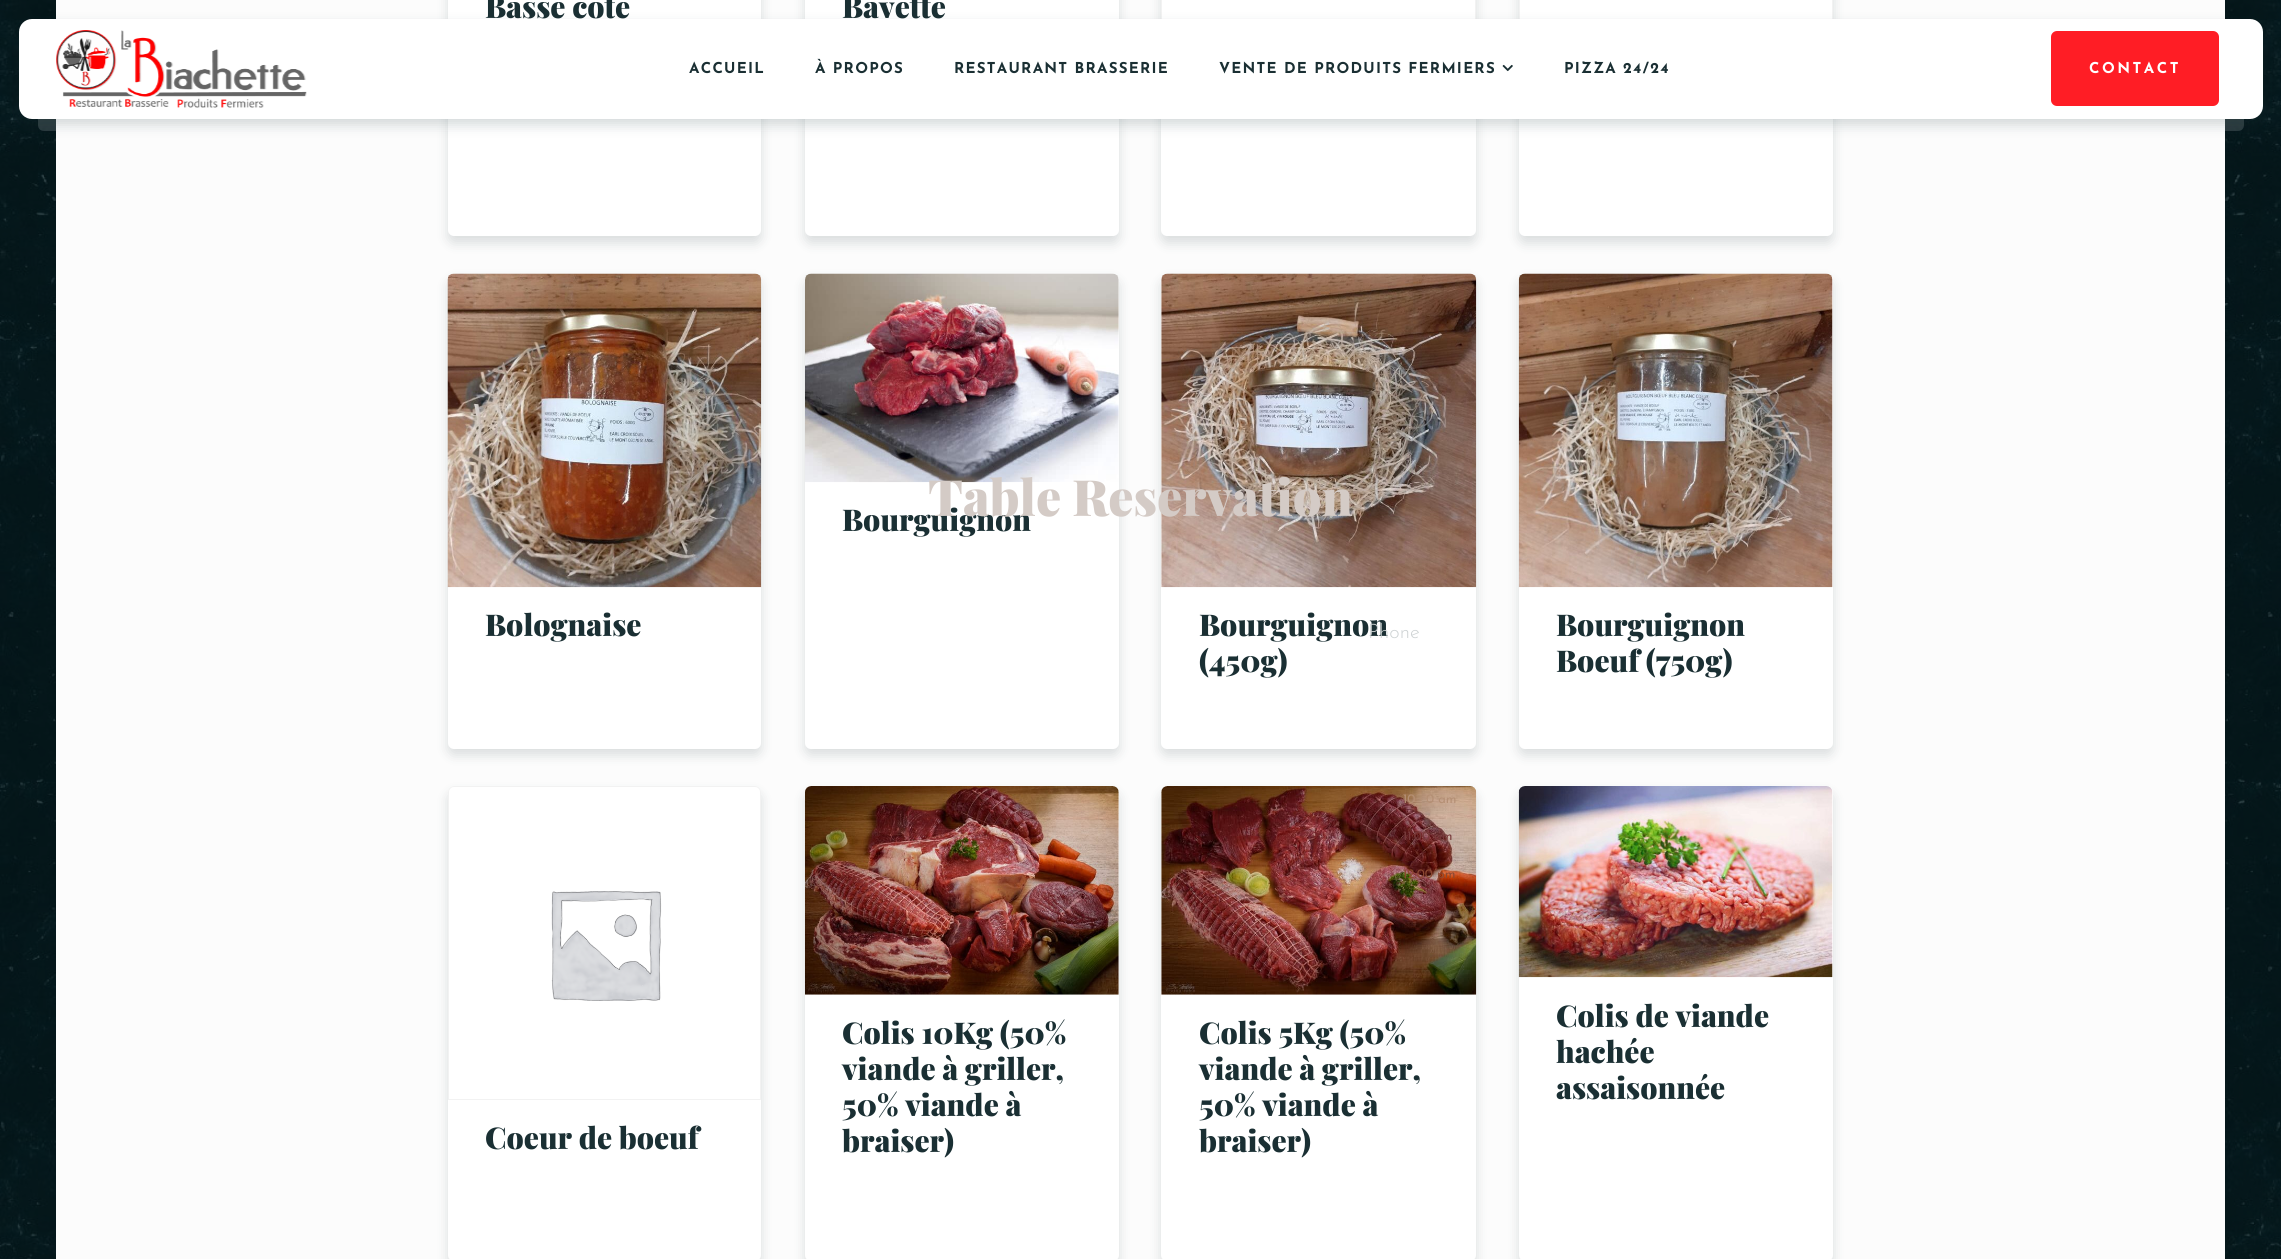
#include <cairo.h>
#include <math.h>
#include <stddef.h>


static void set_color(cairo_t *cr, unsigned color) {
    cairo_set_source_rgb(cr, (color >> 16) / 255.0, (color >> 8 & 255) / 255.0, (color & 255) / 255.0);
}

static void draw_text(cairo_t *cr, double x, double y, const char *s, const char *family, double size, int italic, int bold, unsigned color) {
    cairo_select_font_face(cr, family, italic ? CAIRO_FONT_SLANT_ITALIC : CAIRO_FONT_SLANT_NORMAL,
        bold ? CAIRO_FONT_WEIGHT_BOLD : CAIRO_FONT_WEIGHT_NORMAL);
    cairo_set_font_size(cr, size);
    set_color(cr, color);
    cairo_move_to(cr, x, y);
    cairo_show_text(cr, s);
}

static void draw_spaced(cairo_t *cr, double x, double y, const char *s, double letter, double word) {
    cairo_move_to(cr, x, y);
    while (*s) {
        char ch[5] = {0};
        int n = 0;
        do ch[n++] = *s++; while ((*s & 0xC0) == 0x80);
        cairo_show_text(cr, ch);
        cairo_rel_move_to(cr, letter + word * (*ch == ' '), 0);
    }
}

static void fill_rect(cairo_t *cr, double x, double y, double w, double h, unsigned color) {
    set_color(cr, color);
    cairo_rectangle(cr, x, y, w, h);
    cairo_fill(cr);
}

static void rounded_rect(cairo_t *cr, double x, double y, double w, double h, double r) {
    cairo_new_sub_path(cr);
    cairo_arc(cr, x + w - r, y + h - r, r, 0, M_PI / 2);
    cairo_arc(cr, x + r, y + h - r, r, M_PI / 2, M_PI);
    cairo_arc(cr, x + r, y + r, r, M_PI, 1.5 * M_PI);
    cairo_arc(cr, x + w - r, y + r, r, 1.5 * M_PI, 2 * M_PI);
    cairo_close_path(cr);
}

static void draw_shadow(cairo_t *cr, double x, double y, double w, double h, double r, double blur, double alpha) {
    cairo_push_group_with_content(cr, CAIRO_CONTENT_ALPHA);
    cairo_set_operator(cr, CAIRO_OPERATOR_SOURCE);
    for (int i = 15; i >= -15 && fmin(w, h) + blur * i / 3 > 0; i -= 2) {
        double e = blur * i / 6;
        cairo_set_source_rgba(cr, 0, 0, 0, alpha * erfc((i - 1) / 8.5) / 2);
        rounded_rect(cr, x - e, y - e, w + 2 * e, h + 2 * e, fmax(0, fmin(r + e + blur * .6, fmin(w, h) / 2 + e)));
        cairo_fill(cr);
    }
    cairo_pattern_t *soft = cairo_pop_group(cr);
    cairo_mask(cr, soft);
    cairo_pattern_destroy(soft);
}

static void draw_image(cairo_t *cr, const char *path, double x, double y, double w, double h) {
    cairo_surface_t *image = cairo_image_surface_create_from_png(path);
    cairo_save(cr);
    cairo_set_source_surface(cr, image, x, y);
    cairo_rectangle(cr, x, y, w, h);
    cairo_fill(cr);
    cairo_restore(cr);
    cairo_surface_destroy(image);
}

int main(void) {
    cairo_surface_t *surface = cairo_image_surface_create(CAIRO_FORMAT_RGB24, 2281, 1259);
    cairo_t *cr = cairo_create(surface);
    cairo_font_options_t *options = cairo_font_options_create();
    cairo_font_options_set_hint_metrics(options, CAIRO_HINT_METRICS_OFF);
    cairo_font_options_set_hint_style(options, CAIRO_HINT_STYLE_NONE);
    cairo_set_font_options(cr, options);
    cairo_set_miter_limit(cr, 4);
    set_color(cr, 0xFFFFFF);
    cairo_paint(cr);
    draw_image(cr, "assets/img1.png", 0, 0, 2281, 1259);
    fill_rect(cr, 56, 0, 2169, 1259, 0xFCFCFC);
    set_color(cr, 0x1A2F33);
    draw_shadow(cr, 448, -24, 313, 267, 6, 6, 0.15);
    set_color(cr, 0xFFFFFF);
    rounded_rect(cr, 448, -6, 313, 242, 6);
    cairo_fill(cr);
    draw_text(cr, 485, 18, "Basse cote", "Playfair Display Black", 30, 0, 0, 0x1A2F33);
    set_color(cr, 0x1A2F33);
    draw_shadow(cr, 805, -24, 314, 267, 6, 6, 0.15);
    set_color(cr, 0xFFFFFF);
    rounded_rect(cr, 805, -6, 314, 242, 6);
    cairo_fill(cr);
    draw_text(cr, 842, 18, "Bavette", "Playfair Display Black", 30, 0, 0, 0x1A2F33);
    set_color(cr, 0x1A2F33);
    draw_shadow(cr, 1161, -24, 315, 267, 6, 6, 0.15);
    set_color(cr, 0xFFFFFF);
    rounded_rect(cr, 1161, -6, 315, 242, 6);
    cairo_fill(cr);
    cairo_rectangle(cr, 1161.5, -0.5, 314, 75);
    set_color(cr, 0xF2F2F2);
    cairo_set_line_width(cr, 1);
    cairo_stroke(cr);
    set_color(cr, 0x1A2F33);
    draw_shadow(cr, 1519, -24, 314, 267, 6, 6, 0.15);
    set_color(cr, 0xFFFFFF);
    rounded_rect(cr, 1519, -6, 314, 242, 6);
    cairo_fill(cr);
    cairo_rectangle(cr, 1519.5, -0.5, 313, 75);
    set_color(cr, 0xF2F2F2);
    cairo_stroke(cr);
    set_color(cr, 0x1A2F33);
    draw_shadow(cr, 805, 280, 314, 475, 6, 6, 0.15);
    set_color(cr, 0xFFFFFF);
    rounded_rect(cr, 805, 274, 314, 475, 6);
    cairo_fill(cr);
    draw_image(cr, "assets/img2.png", 805, 273, 314, 210);
    draw_text(cr, 842, 531, "Bourguignon", "Playfair Display Black", 30, 0, 0, 0x1A2F33);
    set_color(cr, 0x1A2F33);
    draw_shadow(cr, 448, 280, 313, 475, 6, 6, 0.15);
    set_color(cr, 0xFFFFFF);
    rounded_rect(cr, 448, 274, 313, 475, 6);
    cairo_fill(cr);
    draw_image(cr, "assets/img3.png", 447, 273, 315, 315);
    draw_text(cr, 485, 636, "Bolognaise", "Playfair Display Black", 30, 0, 0, 0x1A2F33);
    set_color(cr, 0x1A2F33);
    draw_shadow(cr, 1161, 280, 315, 475, 6, 6, 0.15);
    set_color(cr, 0xFFFFFF);
    rounded_rect(cr, 1161, 274, 315, 475, 6);
    cairo_fill(cr);
    draw_image(cr, "assets/img4.png", 1161, 273, 316, 315);
    draw_text(cr, 1199, 636, "Bourguignon", "Playfair Display Black", 30, 0, 0, 0x1A2F33);
    draw_text(cr, 1199, 672, "(450g)", "Playfair Display Black", 30, 0, 0, 0x1A2F33);
    set_color(cr, 0x1A2F33);
    draw_shadow(cr, 1519, 280, 314, 475, 6, 6, 0.15);
    set_color(cr, 0xFFFFFF);
    rounded_rect(cr, 1519, 274, 314, 475, 6);
    cairo_fill(cr);
    draw_image(cr, "assets/img5.png", 1518, 273, 315, 315);
    draw_text(cr, 1556, 636, "Bourguignon", "Playfair Display Black", 30, 0, 0, 0x1A2F33);
    draw_text(cr, 1556, 672, "Boeuf (750g)", "Playfair Display Black", 30, 0, 0, 0x1A2F33);
    set_color(cr, 0x1A2F33);
    draw_shadow(cr, 448, 793, 313, 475, 6, 6, 0.15);
    set_color(cr, 0xFFFFFF);
    rounded_rect(cr, 448, 786, 313, 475, 6);
    cairo_fill(cr);
    cairo_new_path(cr);
    cairo_move_to(cr, 454, 786.5);
    cairo_line_to(cr, 755, 786.5);
    cairo_curve_to(cr, 758, 786.5, 760.5, 789, 760.5, 792);
    cairo_line_to(cr, 760.5, 1099.5);
    cairo_line_to(cr, 448.5, 1099.5);
    cairo_line_to(cr, 448.5, 792);
    cairo_curve_to(cr, 448.5, 789, 451, 786.5, 454, 786.5);
    cairo_close_path(cr);
    set_color(cr, 0xF2F2F2);
    cairo_stroke(cr);
    draw_image(cr, "assets/img6.png", 551, 891, 111, 110);
    draw_text(cr, 485, 1149, "Coeur de boeuf", "Playfair Display Black", 30, 0, 0, 0x1A2F33);
    set_color(cr, 0x1A2F33);
    draw_shadow(cr, 805, 793, 314, 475, 6, 6, 0.15);
    set_color(cr, 0xFFFFFF);
    rounded_rect(cr, 805, 786, 314, 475, 6);
    cairo_fill(cr);
    draw_image(cr, "assets/img7.png", 805, 786, 314, 209);
    draw_text(cr, 842, 1044, "Colis 10Kg (50%", "Playfair Display Black", 30, 0, 0, 0x1A2F33);
    draw_text(cr, 842, 1080, "viande à griller,", "Playfair Display Black", 30, 0, 0, 0x1A2F33);
    draw_text(cr, 842, 1116, "50% viande à", "Playfair Display Black", 30, 0, 0, 0x1A2F33);
    draw_text(cr, 842, 1152, "braiser)", "Playfair Display Black", 30, 0, 0, 0x1A2F33);
    set_color(cr, 0x1A2F33);
    draw_shadow(cr, 1161, 793, 315, 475, 6, 6, 0.15);
    set_color(cr, 0xFFFFFF);
    rounded_rect(cr, 1161, 786, 315, 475, 6);
    cairo_fill(cr);
    draw_image(cr, "assets/img8.png", 1161, 786, 316, 209);
    draw_text(cr, 1199, 1044, "Colis 5Kg (50%", "Playfair Display Black", 30, 0, 0, 0x1A2F33);
    draw_text(cr, 1199, 1080, "viande à griller,", "Playfair Display Black", 30, 0, 0, 0x1A2F33);
    draw_text(cr, 1199, 1116, "50% viande à", "Playfair Display Black", 30, 0, 0, 0x1A2F33);
    draw_text(cr, 1199, 1152, "braiser)", "Playfair Display Black", 30, 0, 0, 0x1A2F33);
    set_color(cr, 0x1A2F33);
    draw_shadow(cr, 1519, 793, 314, 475, 6, 6, 0.15);
    set_color(cr, 0xFFFFFF);
    rounded_rect(cr, 1519, 786, 314, 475, 6);
    cairo_fill(cr);
    draw_image(cr, "assets/img9.png", 1518, 786, 315, 192);
    draw_text(cr, 1556, 1027, "Colis de viande", "Playfair Display Black", 30, 0, 0, 0x1A2F33);
    draw_text(cr, 1556, 1063, "hachée", "Playfair Display Black", 30, 0, 0, 0x1A2F33);
    draw_text(cr, 1556, 1099, "assaisonnée", "Playfair Display Black", 30, 0, 0, 0x1A2F33);
    set_color(cr, 0x1A2F33);
    draw_shadow(cr, 19, 25, 2244, 100, 13, 6, 0.2);
    set_color(cr, 0xFFFFFF);
    rounded_rect(cr, 19, 19, 2244, 100, 13);
    cairo_fill(cr);
    draw_image(cr, "assets/img10.png", 56, 30, 251, 78);
    cairo_select_font_face(cr, "Josefin Sans", CAIRO_FONT_SLANT_NORMAL, CAIRO_FONT_WEIGHT_BOLD);
    cairo_set_font_size(cr, 15);
    set_color(cr, 0x1A2F33);
    draw_spaced(cr, 689, 73, "ACCUEIL", 1.25, 0);
    draw_spaced(cr, 815, 73, "À PROPOS", 1.25, 0);
    draw_spaced(cr, 954, 73, "RESTAURANT BRASSERIE", 1.25, 0);
    draw_spaced(cr, 1219, 73, "VENTE DE PRODUITS FERMIERS", 1.25, 0);
    draw_image(cr, "assets/img11.png", 1502, 64, 11, 8);
    draw_spaced(cr, 1564, 73, "PIZZA 24/24", 1.25, 0);
    set_color(cr, 0xFF1D25);
    rounded_rect(cr, 2051, 31, 168, 75, 6);
    cairo_fill(cr);
    set_color(cr, 0xFFFFFF);
    draw_spaced(cr, 2089, 73, "CONTACT", 2.5, 0);
    cairo_set_source_rgba(cr, 0.949, 0.965, 0.969, 0.15);
    cairo_new_path(cr);
    cairo_move_to(cr, 38, 119);
    cairo_line_to(cr, 2244, 119);
    cairo_line_to(cr, 2244, 125);
    cairo_curve_to(cr, 2244, 128.5, 2241.5, 131, 2238, 131);
    cairo_line_to(cr, 44, 131);
    cairo_curve_to(cr, 40.5, 131, 38, 128.5, 38, 125);
    cairo_close_path(cr);
    cairo_fill(cr);
    draw_text(cr, 928, 516, "Table Reservation", "Playfair Display Black", 50, 0, 0, 0xD4CBC6);
    draw_text(cr, 1368, 638, "Phone", "Josefin Sans Light", 20, 0, 0, 0xCCD1D2);
    draw_text(cr, 1403, 803, "10", "Josefin Sans", 13, 0, 0, 0xB48F74);
    draw_text(cr, 1426, 803, "0 am", "Josefin Sans", 13, 0, 0, 0xB48F74);
    draw_text(cr, 1403, 840, "11:00 am", "Josefin Sans", 13, 0, 0, 0x783B3B);
    draw_text(cr, 1403, 878, "12:00 pm", "Josefin Sans", 13, 0, 0, 0x8C4832);
    cairo_surface_write_to_png(surface, "output.png");
    cairo_font_options_destroy(options);
    cairo_destroy(cr);
    cairo_surface_destroy(surface);
    return 0;
}
